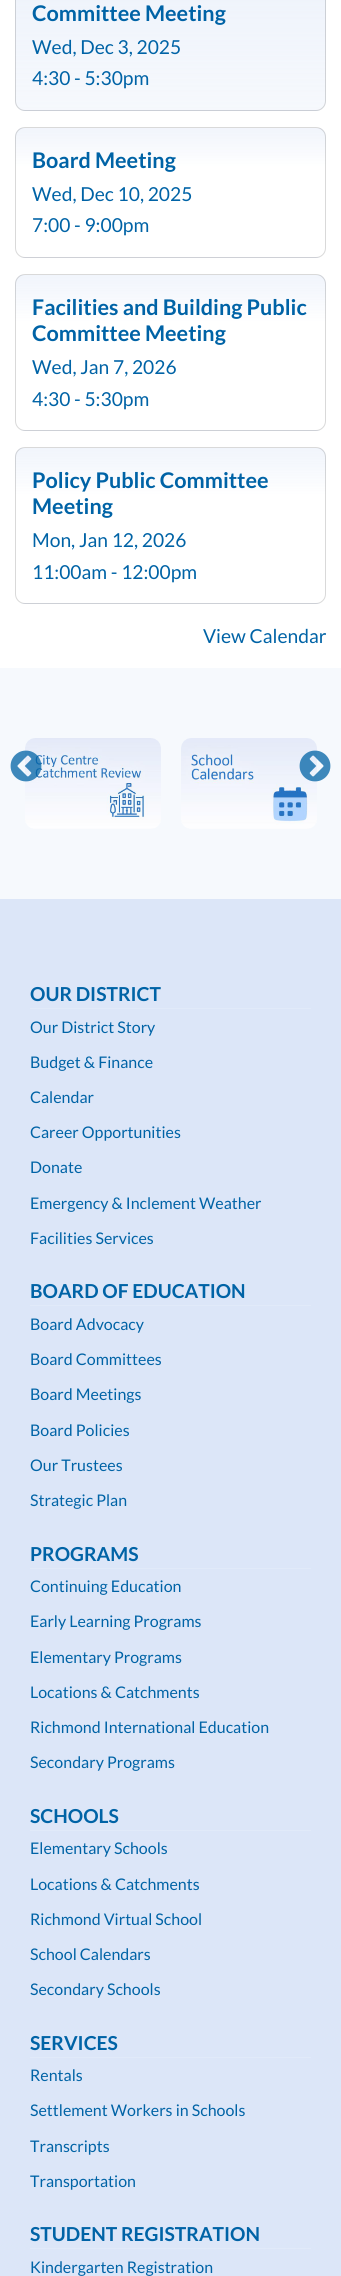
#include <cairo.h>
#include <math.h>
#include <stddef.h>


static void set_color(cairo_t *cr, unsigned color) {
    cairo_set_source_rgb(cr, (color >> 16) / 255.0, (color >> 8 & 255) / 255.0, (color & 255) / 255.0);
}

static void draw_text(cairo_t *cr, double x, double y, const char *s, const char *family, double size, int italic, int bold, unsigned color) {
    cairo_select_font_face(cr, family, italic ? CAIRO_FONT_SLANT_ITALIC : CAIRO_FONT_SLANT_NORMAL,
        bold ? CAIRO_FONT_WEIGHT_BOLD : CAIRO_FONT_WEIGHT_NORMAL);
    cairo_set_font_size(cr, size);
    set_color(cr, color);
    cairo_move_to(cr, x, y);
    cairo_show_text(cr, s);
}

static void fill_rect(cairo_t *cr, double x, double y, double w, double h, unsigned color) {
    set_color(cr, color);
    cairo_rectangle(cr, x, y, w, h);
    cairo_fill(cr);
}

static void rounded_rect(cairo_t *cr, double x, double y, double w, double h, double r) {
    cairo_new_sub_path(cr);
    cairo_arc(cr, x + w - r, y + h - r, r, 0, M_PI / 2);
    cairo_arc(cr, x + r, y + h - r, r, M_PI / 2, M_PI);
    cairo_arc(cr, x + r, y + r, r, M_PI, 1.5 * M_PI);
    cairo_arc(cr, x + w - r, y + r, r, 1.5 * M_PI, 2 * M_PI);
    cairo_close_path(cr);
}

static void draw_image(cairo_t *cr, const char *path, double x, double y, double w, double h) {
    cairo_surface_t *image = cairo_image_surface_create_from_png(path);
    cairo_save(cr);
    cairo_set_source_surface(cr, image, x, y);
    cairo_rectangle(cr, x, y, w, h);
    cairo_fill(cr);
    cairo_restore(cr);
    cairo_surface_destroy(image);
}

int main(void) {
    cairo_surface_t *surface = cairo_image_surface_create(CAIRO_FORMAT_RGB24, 341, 2276);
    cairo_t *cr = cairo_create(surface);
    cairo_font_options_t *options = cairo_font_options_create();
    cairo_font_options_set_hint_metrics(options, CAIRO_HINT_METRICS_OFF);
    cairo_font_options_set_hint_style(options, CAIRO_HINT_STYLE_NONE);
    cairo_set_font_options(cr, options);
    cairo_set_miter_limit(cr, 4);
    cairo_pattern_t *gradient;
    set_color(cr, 0xFFFFFF);
    cairo_paint(cr);
    cairo_save(cr);
    rounded_rect(cr, 15, -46, 311, 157, 10);
    cairo_clip(cr);
    gradient = cairo_pattern_create_linear(171, 110, 171, -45);
    cairo_pattern_add_color_stop_rgba(gradient, 0, 0.929, 0.949, 0.984, 0.5);
    cairo_pattern_add_color_stop_rgba(gradient, 1, 0.929, 0.949, 0.984, 1);
    cairo_set_source(cr, gradient);
    cairo_pattern_destroy(gradient);
    cairo_rectangle(cr, 15, 0, 311, 110);
    cairo_fill(cr);
    gradient = cairo_pattern_create_linear(171, 265, 171, 110);
    cairo_pattern_add_color_stop_rgba(gradient, 0, 0.929, 0.949, 0.984, 0.5);
    cairo_pattern_add_color_stop_rgba(gradient, 1, 0.929, 0.949, 0.984, 1);
    cairo_set_source(cr, gradient);
    cairo_pattern_destroy(gradient);
    cairo_rectangle(cr, 15, 110, 311, 1);
    cairo_fill(cr);
    cairo_restore(cr);
    rounded_rect(cr, 15.5, -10.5, 310, 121, 9.5);
    cairo_set_source_rgba(cr, 0, 0, 0, 0.15);
    cairo_set_line_width(cr, 1);
    cairo_stroke(cr);
    draw_text(cr, 32, 21, "Committee Meeting", "Lato", 21.6, 0, 1, 0x0063A6);
    draw_text(cr, 32, 54, "Wed, Dec 3, 2025", "Lato", 19.25, 0, 0, 0x0063A6);
    draw_text(cr, 32, 85, "4:30 - 5:30pm", "Lato", 19.25, 0, 0, 0x0063A6);
    cairo_save(cr);
    rounded_rect(cr, 15, 127, 311, 131, 10);
    cairo_clip(cr);
    gradient = cairo_pattern_create_linear(171, 257, 171, 128);
    cairo_pattern_add_color_stop_rgba(gradient, 0.7, 1, 1, 1, 1);
    cairo_pattern_add_color_stop_rgba(gradient, 1, 0.929, 0.949, 0.984, 0.75);
    cairo_set_source(cr, gradient);
    cairo_pattern_destroy(gradient);
    cairo_rectangle(cr, 15, 128, 311, 129);
    cairo_fill(cr);
    gradient = cairo_pattern_create_linear(171, 386, 171, 257);
    cairo_pattern_add_color_stop_rgba(gradient, 0.7, 1, 1, 1, 1);
    cairo_pattern_add_color_stop_rgba(gradient, 1, 0.929, 0.949, 0.984, 0.75);
    cairo_set_source(cr, gradient);
    cairo_pattern_destroy(gradient);
    cairo_rectangle(cr, 15, 257, 311, 1);
    cairo_fill(cr);
    cairo_restore(cr);
    rounded_rect(cr, 15.5, 127.5, 310, 130, 9.5);
    cairo_set_source_rgba(cr, 0, 0, 0, 0.15);
    cairo_stroke(cr);
    draw_text(cr, 32, 168, "Board Meeting", "Lato", 21.6, 0, 1, 0x0063A6);
    draw_text(cr, 32, 201, "Wed, Dec 10, 2025", "Lato", 19.25, 0, 0, 0x0063A6);
    draw_text(cr, 32, 232, "7:00 - 9:00pm", "Lato", 19.25, 0, 0, 0x0063A6);
    cairo_save(cr);
    rounded_rect(cr, 15, 274, 311, 157, 10);
    cairo_clip(cr);
    gradient = cairo_pattern_create_linear(171, 430, 171, 275);
    cairo_pattern_add_color_stop_rgba(gradient, 0.7, 1, 1, 1, 1);
    cairo_pattern_add_color_stop_rgba(gradient, 1, 0.929, 0.949, 0.984, 0.75);
    cairo_set_source(cr, gradient);
    cairo_pattern_destroy(gradient);
    cairo_rectangle(cr, 15, 275, 311, 155);
    cairo_fill(cr);
    gradient = cairo_pattern_create_linear(171, 585, 171, 430);
    cairo_pattern_add_color_stop_rgba(gradient, 0.7, 1, 1, 1, 1);
    cairo_pattern_add_color_stop_rgba(gradient, 1, 0.929, 0.949, 0.984, 0.75);
    cairo_set_source(cr, gradient);
    cairo_pattern_destroy(gradient);
    cairo_rectangle(cr, 15, 430, 311, 1);
    cairo_fill(cr);
    cairo_restore(cr);
    rounded_rect(cr, 15.5, 274.5, 310, 156, 9.5);
    cairo_set_source_rgba(cr, 0, 0, 0, 0.15);
    cairo_stroke(cr);
    draw_text(cr, 32, 315, "Facilities and Building Public", "Lato", 21.6, 0, 1, 0x0063A6);
    draw_text(cr, 32, 341, "Committee Meeting", "Lato", 21.6, 0, 1, 0x0063A6);
    draw_text(cr, 32, 374, "Wed, Jan 7, 2026", "Lato", 19.25, 0, 0, 0x0063A6);
    draw_text(cr, 32, 406, "4:30 - 5:30pm", "Lato", 19.25, 0, 0, 0x0063A6);
    cairo_save(cr);
    rounded_rect(cr, 15, 447, 311, 157, 10);
    cairo_clip(cr);
    gradient = cairo_pattern_create_linear(171, 603, 171, 448);
    cairo_pattern_add_color_stop_rgba(gradient, 0.7, 1, 1, 1, 1);
    cairo_pattern_add_color_stop_rgba(gradient, 1, 0.929, 0.949, 0.984, 0.75);
    cairo_set_source(cr, gradient);
    cairo_pattern_destroy(gradient);
    cairo_rectangle(cr, 15, 448, 311, 155);
    cairo_fill(cr);
    gradient = cairo_pattern_create_linear(171, 758, 171, 603);
    cairo_pattern_add_color_stop_rgba(gradient, 0.7, 1, 1, 1, 1);
    cairo_pattern_add_color_stop_rgba(gradient, 1, 0.929, 0.949, 0.984, 0.75);
    cairo_set_source(cr, gradient);
    cairo_pattern_destroy(gradient);
    cairo_rectangle(cr, 15, 603, 311, 1);
    cairo_fill(cr);
    cairo_restore(cr);
    rounded_rect(cr, 15.5, 447.5, 310, 156, 9.5);
    cairo_set_source_rgba(cr, 0, 0, 0, 0.15);
    cairo_stroke(cr);
    draw_text(cr, 32, 488, "Policy Public Committee", "Lato", 21.6, 0, 1, 0x0063A6);
    draw_text(cr, 32, 514, "Meeting", "Lato", 21.6, 0, 1, 0x0063A6);
    draw_text(cr, 32, 547, "Mon, Jan 12, 2026", "Lato", 19.25, 0, 0, 0x0063A6);
    draw_text(cr, 32, 579, "11:00am - 12:00pm", "Lato", 19.25, 0, 0, 0x0063A6);
    draw_text(cr, 203, 643, "View Calendar", "Lato", 19.25, 0, 0, 0x0063A6);
    fill_rect(cr, 0, 668, 341, 231, 0xF6F9FD);
    draw_image(cr, "assets/img1.png", 25, 738, 136, 91);
    draw_image(cr, "assets/img2.png", 181, 738, 136, 91);
    draw_image(cr, "assets/img3.png", 10, 750, 32, 32);
    draw_image(cr, "assets/img4.png", 299, 750, 32, 32);
    fill_rect(cr, 0, 899, 341, 1377, 0xDCE6F8);
    fill_rect(cr, 30, 1008, 281, 1, 0xE1EAF9);
    draw_text(cr, 30, 1001, "OUR DISTRICT", "Lato", 19.25, 0, 1, 0x0063A6);
    draw_text(cr, 30, 1033, "Our District Story", "Lato", 16, 0, 0, 0x0063A6);
    draw_text(cr, 30, 1068, "Budget & Finance", "Lato", 16, 0, 0, 0x0063A6);
    draw_text(cr, 30, 1103, "Calendar", "Lato", 16, 0, 0, 0x0063A6);
    draw_text(cr, 30, 1138, "Career Opportunities", "Lato", 16, 0, 0, 0x0063A6);
    draw_text(cr, 30, 1173, "Donate", "Lato", 16, 0, 0, 0x0063A6);
    draw_text(cr, 30, 1209, "Emergency & Inclement Weather", "Lato", 16, 0, 0, 0x0063A6);
    draw_text(cr, 30, 1244, "Facilities Services", "Lato", 16, 0, 0, 0x0063A6);
    fill_rect(cr, 30, 1305, 281, 1, 0xE1EAF9);
    draw_text(cr, 30, 1298, "BOARD OF EDUCATION", "Lato", 19.25, 0, 1, 0x0063A6);
    draw_text(cr, 30, 1330, "Board Advocacy", "Lato", 16, 0, 0, 0x0063A6);
    draw_text(cr, 30, 1365, "Board Committees", "Lato", 16, 0, 0, 0x0063A6);
    draw_text(cr, 30, 1400, "Board Meetings", "Lato", 16, 0, 0, 0x0063A6);
    draw_text(cr, 30, 1436, "Board Policies", "Lato", 16, 0, 0, 0x0063A6);
    draw_text(cr, 30, 1471, "Our Trustees", "Lato", 16, 0, 0, 0x0063A6);
    draw_text(cr, 30, 1506, "Strategic Plan", "Lato", 16, 0, 0, 0x0063A6);
    fill_rect(cr, 30, 1568, 281, 1, 0xE1EAF9);
    draw_text(cr, 30, 1561, "PROGRAMS", "Lato", 19.25, 0, 1, 0x0063A6);
    draw_text(cr, 30, 1592, "Continuing Education", "Lato", 16, 0, 0, 0x0063A6);
    draw_text(cr, 30, 1627, "Early Learning Programs", "Lato", 16, 0, 0, 0x0063A6);
    draw_text(cr, 30, 1663, "Elementary Programs", "Lato", 16, 0, 0, 0x0063A6);
    draw_text(cr, 30, 1698, "Locations & Catchments", "Lato", 16, 0, 0, 0x0063A6);
    draw_text(cr, 30, 1733, "Richmond International Education", "Lato", 16, 0, 0, 0x0063A6);
    draw_text(cr, 30, 1768, "Secondary Programs", "Lato", 16, 0, 0, 0x0063A6);
    fill_rect(cr, 30, 1830, 281, 1, 0xE1EAF9);
    draw_text(cr, 30, 1823, "SCHOOLS", "Lato", 19.25, 0, 1, 0x0063A6);
    draw_text(cr, 30, 1854, "Elementary Schools", "Lato", 16, 0, 0, 0x0063A6);
    draw_text(cr, 30, 1890, "Locations & Catchments", "Lato", 16, 0, 0, 0x0063A6);
    draw_text(cr, 30, 1925, "Richmond Virtual School", "Lato", 16, 0, 0, 0x0063A6);
    draw_text(cr, 30, 1960, "School Calendars", "Lato", 16, 0, 0, 0x0063A6);
    draw_text(cr, 30, 1995, "Secondary Schools", "Lato", 16, 0, 0, 0x0063A6);
    fill_rect(cr, 30, 2057, 281, 1, 0xE1EAF9);
    draw_text(cr, 30, 2050, "SERVICES", "Lato", 19.25, 0, 1, 0x0063A6);
    draw_text(cr, 30, 2081, "Rentals", "Lato", 16, 0, 0, 0x0063A6);
    draw_text(cr, 30, 2116, "Settlement Workers in Schools", "Lato", 16, 0, 0, 0x0063A6);
    draw_text(cr, 30, 2152, "Transcripts", "Lato", 16, 0, 0, 0x0063A6);
    draw_text(cr, 30, 2187, "Transportation", "Lato", 16, 0, 0, 0x0063A6);
    fill_rect(cr, 30, 2248, 281, 1, 0xE1EAF9);
    draw_text(cr, 30, 2241, "STUDENT REGISTRATION", "Lato", 19.25, 0, 1, 0x0063A6);
    draw_text(cr, 30, 2273, "Kindergarten Registration", "Lato", 16, 0, 0, 0x0063A6);
    cairo_surface_write_to_png(surface, "output.png");
    cairo_font_options_destroy(options);
    cairo_destroy(cr);
    cairo_surface_destroy(surface);
    return 0;
}
